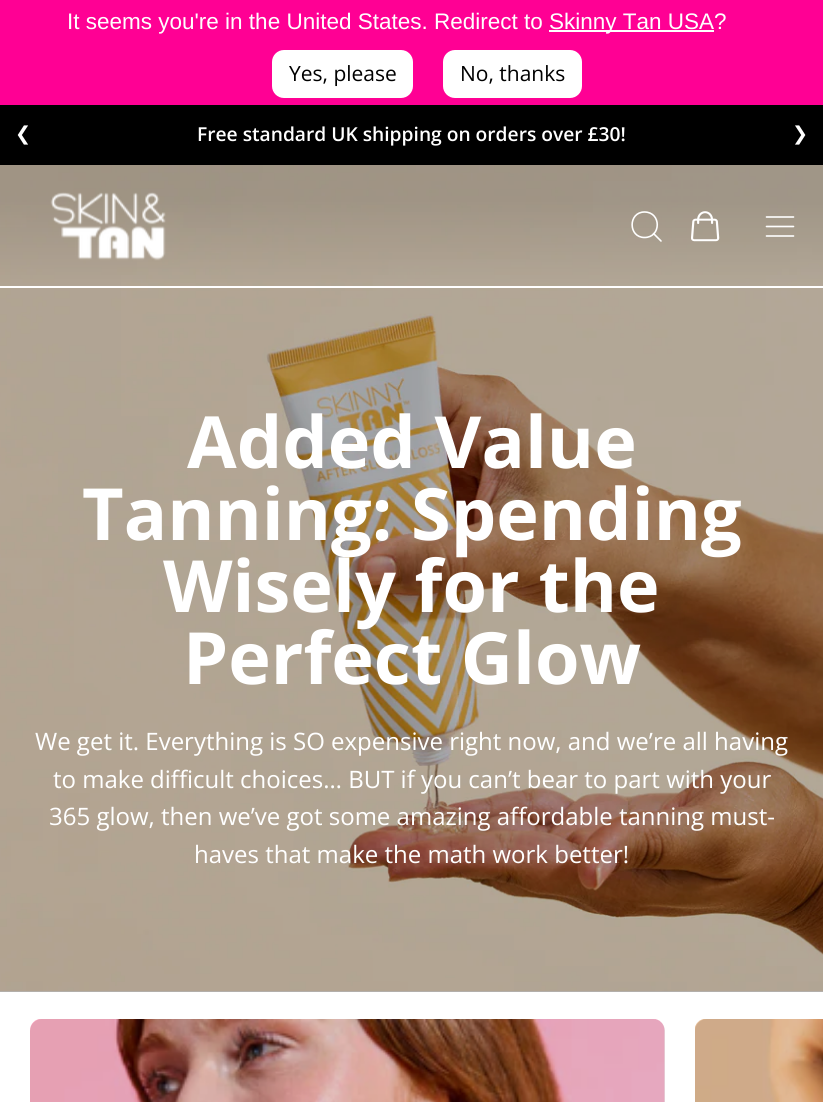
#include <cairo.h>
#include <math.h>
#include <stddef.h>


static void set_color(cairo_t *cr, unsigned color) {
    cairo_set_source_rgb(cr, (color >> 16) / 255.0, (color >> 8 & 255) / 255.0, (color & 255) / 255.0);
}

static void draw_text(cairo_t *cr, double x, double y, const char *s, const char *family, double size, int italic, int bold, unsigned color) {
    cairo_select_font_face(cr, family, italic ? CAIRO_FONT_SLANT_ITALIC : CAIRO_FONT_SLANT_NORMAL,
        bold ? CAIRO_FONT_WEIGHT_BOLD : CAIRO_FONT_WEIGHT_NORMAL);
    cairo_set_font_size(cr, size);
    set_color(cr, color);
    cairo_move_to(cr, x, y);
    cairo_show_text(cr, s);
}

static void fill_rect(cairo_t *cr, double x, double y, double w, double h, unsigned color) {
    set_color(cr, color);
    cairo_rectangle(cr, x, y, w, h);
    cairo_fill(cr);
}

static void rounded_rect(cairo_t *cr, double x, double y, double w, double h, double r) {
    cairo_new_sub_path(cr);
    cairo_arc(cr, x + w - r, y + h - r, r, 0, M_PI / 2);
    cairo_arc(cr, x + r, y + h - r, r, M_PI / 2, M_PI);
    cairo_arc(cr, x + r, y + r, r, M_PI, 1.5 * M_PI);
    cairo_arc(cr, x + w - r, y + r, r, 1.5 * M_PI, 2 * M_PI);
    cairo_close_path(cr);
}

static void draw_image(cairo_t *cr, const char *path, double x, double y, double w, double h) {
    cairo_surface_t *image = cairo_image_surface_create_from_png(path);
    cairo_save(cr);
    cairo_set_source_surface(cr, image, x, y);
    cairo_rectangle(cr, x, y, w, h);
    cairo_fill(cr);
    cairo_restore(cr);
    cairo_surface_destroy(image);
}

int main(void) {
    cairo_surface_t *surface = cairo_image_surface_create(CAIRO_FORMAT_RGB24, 823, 1102);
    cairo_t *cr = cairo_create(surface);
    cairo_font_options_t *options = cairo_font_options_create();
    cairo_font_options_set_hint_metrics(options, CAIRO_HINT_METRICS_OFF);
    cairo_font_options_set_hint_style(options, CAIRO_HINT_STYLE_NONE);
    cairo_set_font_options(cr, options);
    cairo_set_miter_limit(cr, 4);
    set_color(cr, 0xFFFFFF);
    cairo_paint(cr);
    fill_rect(cr, 0, 0, 823, 105, 0xFF0094);
    draw_text(cr, 67, 29, "It seems you're in the United States. Redirect to", "Liberation Sans", 22.5, 0, 0, 0xFFFFFF);
    fill_rect(cr, 549, 30, 165, 2, 0xFFFFFF);
    draw_text(cr, 549, 29, "Skinny Tan USA?", "Liberation Sans", 22.5, 0, 0, 0xFFFFFF);
    rounded_rect(cr, 272, 50, 141, 48, 12);
    cairo_fill(cr);
    draw_text(cr, 289, 81, "Yes, please", "Open Sans", 21, 0, 0, 0x000000);
    set_color(cr, 0xFFFFFF);
    rounded_rect(cr, 443, 50, 139, 48, 12);
    cairo_fill(cr);
    draw_text(cr, 460, 81, "No, thanks", "Open Sans", 21, 0, 0, 0x000000);
    fill_rect(cr, 0, 105, 823, 60, 0x000000);
    draw_text(cr, 15, 140, "❮", "DejaVu Sans", 19.2, 0, 0, 0xFFFFFF);
    draw_text(cr, 197, 141, "Free standard UK shipping on orders over £30!", "Open Sans SemiBold", 19.2, 0, 0, 0xFFFFFF);
    draw_text(cr, 792, 140, "❯", "DejaVu Sans", 19.2, 0, 0, 0xFFFFFF);
    fill_rect(cr, 0, 991, 823, 1, 0xB3B3B3);
    draw_image(cr, "assets/img3.png", 0, 165, 823, 827);
    draw_image(cr, "assets/img1.png", 50, 192, 116, 69);
    cairo_new_path(cr);
    cairo_move_to(cr, 644.5, 237.5);
    cairo_curve_to(cr, 661.5, 237.5, 661.5, 212, 644.5, 212);
    cairo_curve_to(cr, 628, 212, 628, 237.5, 644.5, 237.5);
    cairo_close_path(cr);
    cairo_move_to(cr, 653.5, 233.5);
    cairo_line_to(cr, 661, 241);
    set_color(cr, 0xFFFFFF);
    cairo_set_line_width(cr, 1.6);
    cairo_set_line_cap(cr, CAIRO_LINE_CAP_ROUND);
    cairo_set_line_join(cr, CAIRO_LINE_JOIN_ROUND);
    cairo_stroke(cr);
    draw_image(cr, "assets/img2.png", 691, 211, 29, 31);
    cairo_new_path(cr);
    cairo_move_to(cr, 766.5, 226.5);
    cairo_line_to(cr, 793.5, 226.5);
    cairo_move_to(cr, 766.5, 217);
    cairo_line_to(cr, 793.5, 217);
    cairo_move_to(cr, 766.5, 236);
    cairo_line_to(cr, 793.5, 236);
    cairo_stroke(cr);
    cairo_new_path(cr);
    cairo_move_to(cr, 0, 286);
    cairo_line_to(cr, 0, 288);
    cairo_line_to(cr, 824, 288);
    cairo_line_to(cr, 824, 167);
    cairo_line_to(cr, 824, 286);
    cairo_close_path(cr);
    cairo_fill(cr);
    draw_text(cr, 187, 468, "Added Value", "Open Sans", 72, 0, 1, 0xFFFFFF);
    draw_text(cr, 82, 540, "Tanning: Spending", "Open Sans", 72, 0, 1, 0xFFFFFF);
    draw_text(cr, 163, 612, "Wisely for the", "Open Sans", 72, 0, 1, 0xFFFFFF);
    draw_text(cr, 183, 684, "Perfect Glow", "Open Sans", 72, 0, 1, 0xFFFFFF);
    draw_text(cr, 35, 750, "We get it. Everything is SO expensive right now, and we’re all having", "Open Sans", 24, 0, 0, 0xFFFFFF);
    draw_text(cr, 53, 788, "to make difficult choices… BUT if you can’t bear to part with your", "Open Sans", 24, 0, 0, 0xFFFFFF);
    draw_text(cr, 49, 825, "365 glow, then we’ve got some amazing affordable tanning must-", "Open Sans", 24, 0, 0, 0xFFFFFF);
    draw_text(cr, 194, 863, "haves that make the math work better!", "Open Sans", 24, 0, 0, 0xFFFFFF);
    draw_image(cr, "assets/img4.png", 30, 1019, 635, 83);
    cairo_set_source_rgba(cr, 0, 0, 0, 0.1);
    cairo_new_path(cr);
    cairo_move_to(cr, 42, 1019);
    cairo_line_to(cr, 653, 1019);
    cairo_curve_to(cr, 659.5, 1019, 665, 1024.5, 665, 1031);
    cairo_line_to(cr, 665, 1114);
    cairo_line_to(cr, 30, 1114);
    cairo_line_to(cr, 30, 1031);
    cairo_curve_to(cr, 30, 1024.5, 35.5, 1019, 42, 1019);
    cairo_close_path(cr);
    cairo_fill(cr);
    draw_image(cr, "assets/img5.png", 695, 1019, 128, 83);
    cairo_new_path(cr);
    cairo_move_to(cr, 707, 1019);
    cairo_line_to(cr, 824, 1019);
    cairo_line_to(cr, 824, 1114);
    cairo_line_to(cr, 695, 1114);
    cairo_line_to(cr, 695, 1031);
    cairo_curve_to(cr, 695, 1024.5, 700.5, 1019, 707, 1019);
    cairo_close_path(cr);
    cairo_fill(cr);
    cairo_surface_write_to_png(surface, "output.png");
    cairo_font_options_destroy(options);
    cairo_destroy(cr);
    cairo_surface_destroy(surface);
    return 0;
}
